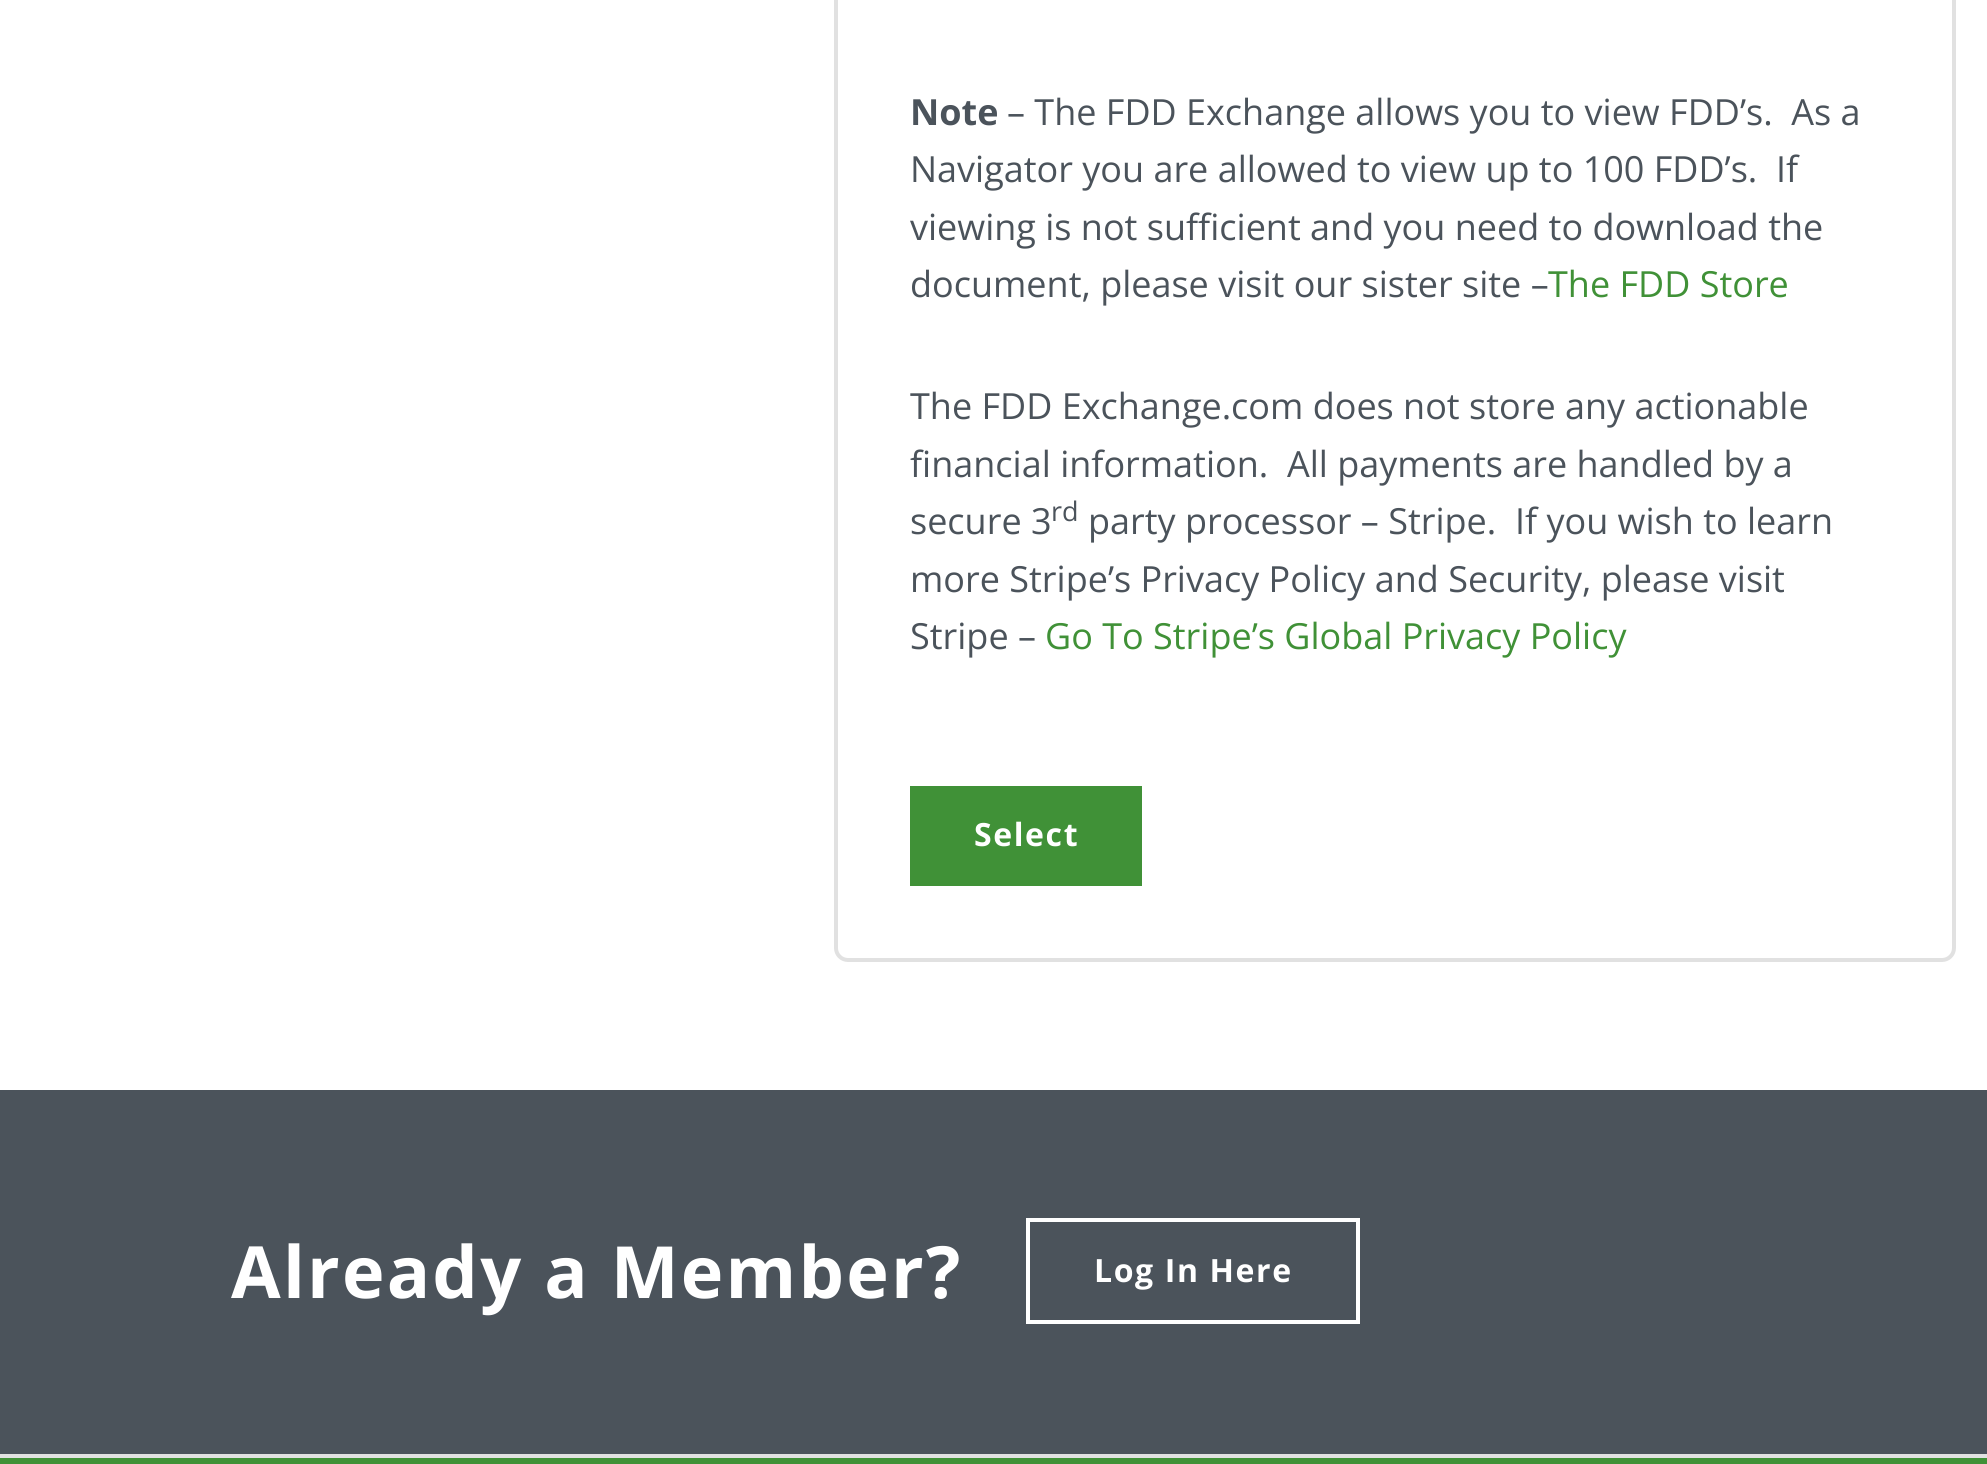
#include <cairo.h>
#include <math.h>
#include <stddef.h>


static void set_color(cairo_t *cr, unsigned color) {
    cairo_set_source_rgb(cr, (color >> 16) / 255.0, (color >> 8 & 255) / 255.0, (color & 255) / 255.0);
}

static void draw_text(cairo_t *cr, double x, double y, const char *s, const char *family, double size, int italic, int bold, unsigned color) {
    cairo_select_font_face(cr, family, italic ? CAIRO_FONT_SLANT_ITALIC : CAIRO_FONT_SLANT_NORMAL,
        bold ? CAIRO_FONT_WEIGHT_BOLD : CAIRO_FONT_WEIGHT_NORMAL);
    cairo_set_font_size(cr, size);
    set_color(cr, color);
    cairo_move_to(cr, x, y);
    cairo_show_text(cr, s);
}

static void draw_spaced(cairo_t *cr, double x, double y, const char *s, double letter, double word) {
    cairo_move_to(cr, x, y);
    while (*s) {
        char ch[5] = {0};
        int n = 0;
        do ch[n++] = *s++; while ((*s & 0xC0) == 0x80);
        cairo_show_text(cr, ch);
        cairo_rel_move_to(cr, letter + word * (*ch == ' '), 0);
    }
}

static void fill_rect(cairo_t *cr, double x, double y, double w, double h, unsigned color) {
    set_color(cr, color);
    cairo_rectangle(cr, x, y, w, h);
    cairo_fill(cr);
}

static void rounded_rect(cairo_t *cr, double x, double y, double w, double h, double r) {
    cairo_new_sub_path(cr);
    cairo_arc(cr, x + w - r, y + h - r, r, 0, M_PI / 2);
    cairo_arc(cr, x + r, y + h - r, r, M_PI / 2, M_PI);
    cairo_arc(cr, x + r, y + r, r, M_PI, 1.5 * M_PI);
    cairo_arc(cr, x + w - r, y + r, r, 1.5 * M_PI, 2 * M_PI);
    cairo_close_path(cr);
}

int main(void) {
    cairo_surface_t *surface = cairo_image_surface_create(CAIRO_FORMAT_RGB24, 1987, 1464);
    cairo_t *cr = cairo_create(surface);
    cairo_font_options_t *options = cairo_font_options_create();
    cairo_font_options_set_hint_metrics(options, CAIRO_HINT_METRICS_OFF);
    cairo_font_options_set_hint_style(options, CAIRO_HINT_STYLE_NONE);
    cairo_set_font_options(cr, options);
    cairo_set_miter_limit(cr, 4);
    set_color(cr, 0xFFFFFF);
    cairo_paint(cr);
    rounded_rect(cr, 836, -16, 1118, 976, 12);
    set_color(cr, 0xE1E1E1);
    cairo_set_line_width(cr, 4);
    cairo_stroke(cr);
    draw_text(cr, 910, 125, "Note", "Open Sans", 36, 0, 1, 0x4B535B);
    draw_text(cr, 1007, 125, "– The FDD Exchange allows you to view FDD’s.  As a", "Open Sans", 36, 0, 0, 0x4B535B);
    draw_text(cr, 910, 182, "Navigator you are allowed to view up to 100 FDD’s.  If", "Open Sans", 36, 0, 0, 0x4B535B);
    draw_text(cr, 910, 240, "viewing is not sufficient and you need to download the", "Open Sans", 36, 0, 0, 0x4B535B);
    draw_text(cr, 910, 297, "document, please visit our sister site –", "Open Sans", 36, 0, 0, 0x4B535B);
    draw_text(cr, 1548, 297, "The FDD Store", "Open Sans", 36, 0, 0, 0x409137);
    draw_text(cr, 910, 419, "The FDD Exchange.com does not store any actionable", "Open Sans", 36, 0, 0, 0x4B535B);
    draw_text(cr, 910, 477, "financial information.  All payments are handled by a", "Open Sans", 36, 0, 0, 0x4B535B);
    draw_text(cr, 910, 534, "secure 3", "Open Sans", 36, 0, 0, 0x4B535B);
    draw_text(cr, 1051, 521, "rd", "Open Sans", 27, 0, 0, 0x4B535B);
    draw_text(cr, 1088, 534, "party processor – Stripe.  If you wish to learn", "Open Sans", 36, 0, 0, 0x4B535B);
    draw_text(cr, 910, 592, "more Stripe’s Privacy Policy and Security, please visit", "Open Sans", 36, 0, 0, 0x4B535B);
    draw_text(cr, 910, 649, "Stripe –", "Open Sans", 36, 0, 0, 0x4B535B);
    draw_text(cr, 1045, 649, "Go To Stripe’s Global Privacy Policy", "Open Sans", 36, 0, 0, 0x409137);
    fill_rect(cr, 910, 786, 232, 100, 0x409137);
    cairo_select_font_face(cr, "Open Sans", CAIRO_FONT_SLANT_NORMAL, CAIRO_FONT_WEIGHT_BOLD);
    cairo_set_font_size(cr, 32);
    set_color(cr, 0xFFFFFF);
    draw_spaced(cr, 974, 846, "Select", 1.6, 0);
    fill_rect(cr, 0, 1090, 1987, 364, 0x4B535B);
    cairo_set_font_size(cr, 72);
    set_color(cr, 0xFFFFFF);
    draw_spaced(cr, 231, 1298, "Already a Member?", 2.2, 0);
    cairo_rectangle(cr, 1028, 1220, 330, 102);
    cairo_stroke(cr);
    cairo_set_font_size(cr, 32);
    draw_spaced(cr, 1094, 1282, "Log In Here", 1.6, 0);
    fill_rect(cr, 0, 1454, 1987, 4, 0xE1E1E1);
    fill_rect(cr, 0, 1458, 1987, 6, 0x409137);
    cairo_surface_write_to_png(surface, "output.png");
    cairo_font_options_destroy(options);
    cairo_destroy(cr);
    cairo_surface_destroy(surface);
    return 0;
}
